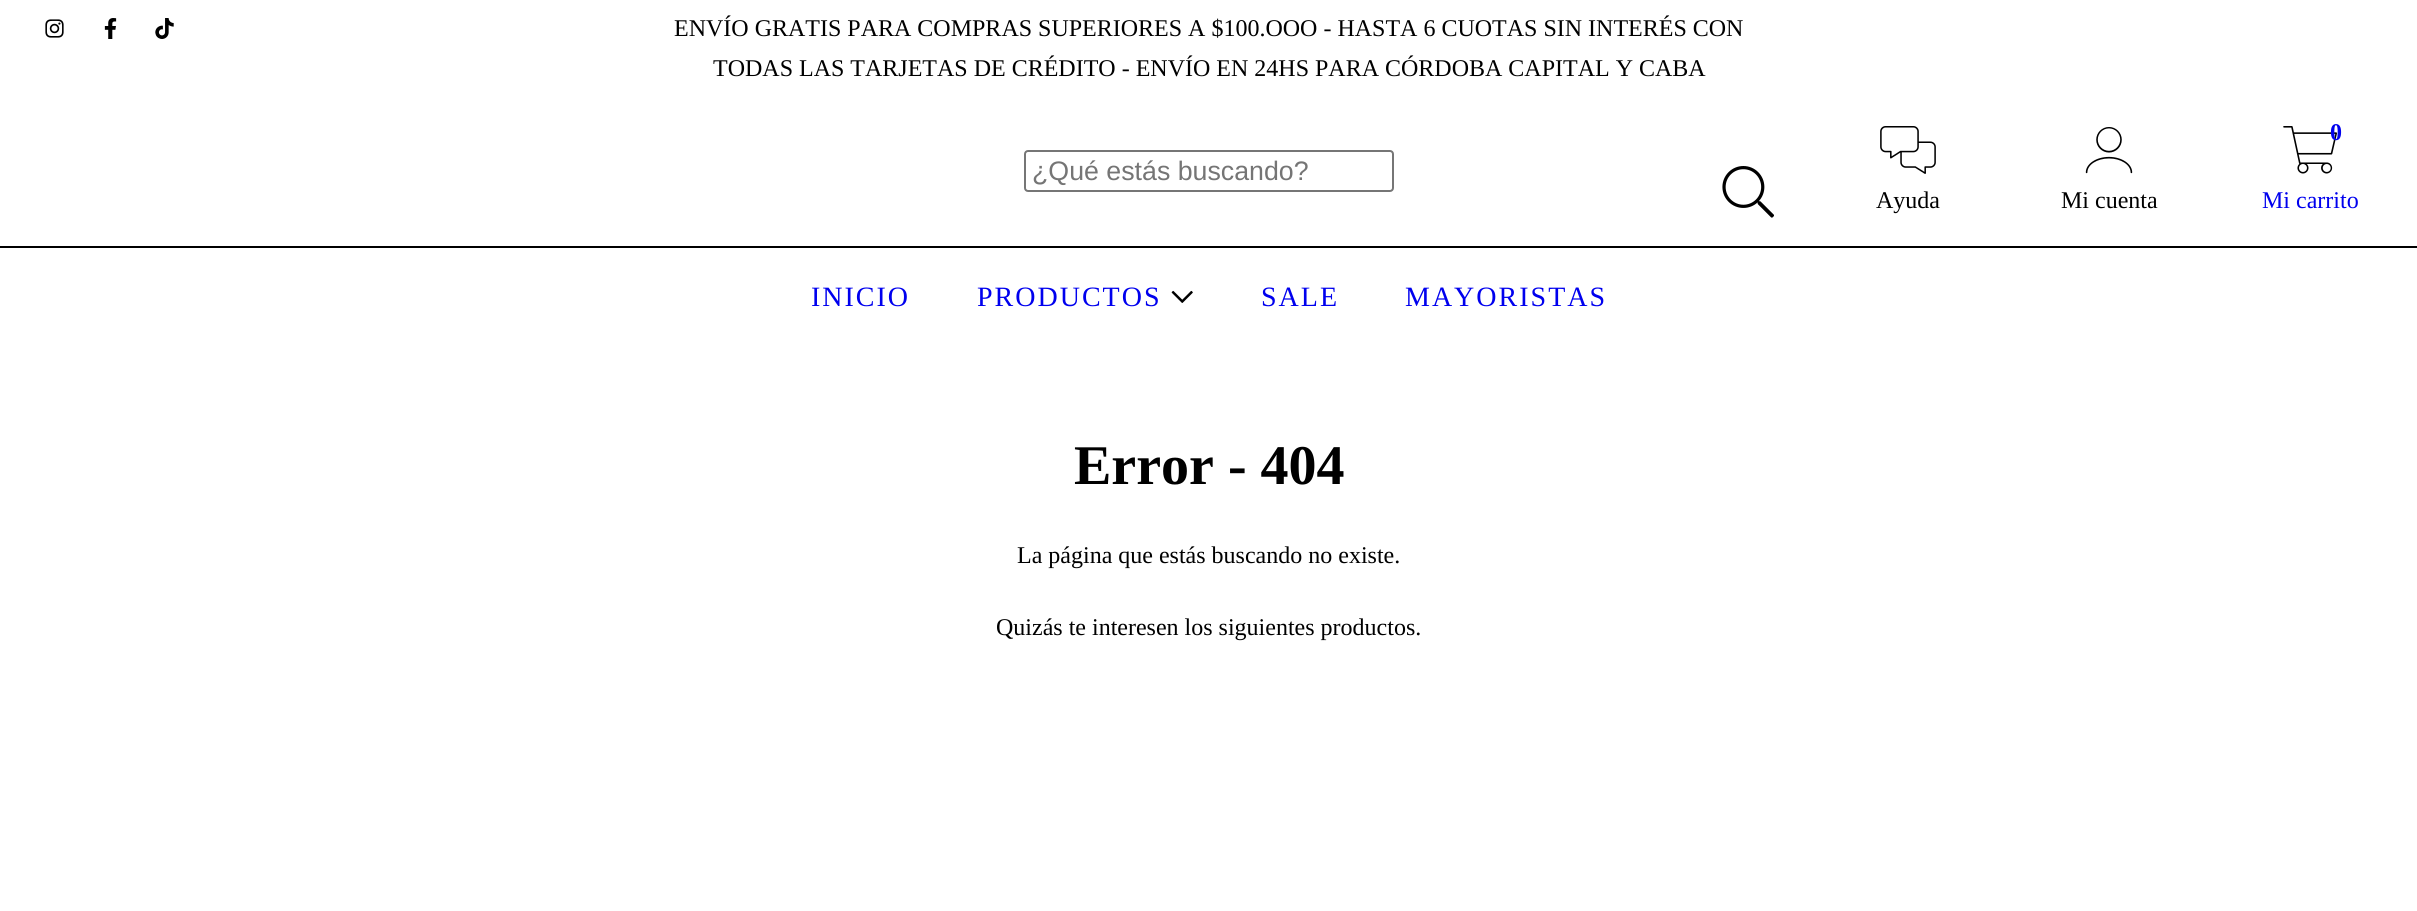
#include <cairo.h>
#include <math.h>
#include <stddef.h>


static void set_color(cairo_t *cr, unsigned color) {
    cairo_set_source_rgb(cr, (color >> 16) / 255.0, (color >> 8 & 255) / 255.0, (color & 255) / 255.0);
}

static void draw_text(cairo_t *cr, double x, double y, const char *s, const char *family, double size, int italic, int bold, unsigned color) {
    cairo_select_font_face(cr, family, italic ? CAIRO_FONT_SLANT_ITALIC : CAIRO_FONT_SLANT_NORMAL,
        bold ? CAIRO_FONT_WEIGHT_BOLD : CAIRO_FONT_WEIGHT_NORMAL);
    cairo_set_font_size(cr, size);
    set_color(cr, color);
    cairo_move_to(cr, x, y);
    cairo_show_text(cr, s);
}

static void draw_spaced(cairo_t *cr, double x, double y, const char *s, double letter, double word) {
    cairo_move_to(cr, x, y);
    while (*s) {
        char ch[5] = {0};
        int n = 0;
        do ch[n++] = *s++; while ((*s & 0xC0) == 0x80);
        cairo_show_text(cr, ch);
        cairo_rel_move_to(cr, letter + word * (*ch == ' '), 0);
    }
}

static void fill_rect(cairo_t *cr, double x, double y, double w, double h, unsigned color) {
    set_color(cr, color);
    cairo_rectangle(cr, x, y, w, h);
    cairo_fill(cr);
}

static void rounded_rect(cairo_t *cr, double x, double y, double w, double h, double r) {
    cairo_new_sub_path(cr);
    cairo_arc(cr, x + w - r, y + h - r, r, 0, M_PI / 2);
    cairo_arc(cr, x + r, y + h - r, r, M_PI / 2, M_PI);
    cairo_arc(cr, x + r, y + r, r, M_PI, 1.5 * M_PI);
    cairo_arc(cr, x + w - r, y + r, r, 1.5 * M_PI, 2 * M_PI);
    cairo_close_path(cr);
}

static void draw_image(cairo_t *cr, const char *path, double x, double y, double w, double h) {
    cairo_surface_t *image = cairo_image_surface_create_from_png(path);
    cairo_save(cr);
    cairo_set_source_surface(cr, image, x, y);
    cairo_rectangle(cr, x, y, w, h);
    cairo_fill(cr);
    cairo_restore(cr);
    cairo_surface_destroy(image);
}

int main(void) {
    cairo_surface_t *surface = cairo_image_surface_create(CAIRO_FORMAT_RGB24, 2417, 911);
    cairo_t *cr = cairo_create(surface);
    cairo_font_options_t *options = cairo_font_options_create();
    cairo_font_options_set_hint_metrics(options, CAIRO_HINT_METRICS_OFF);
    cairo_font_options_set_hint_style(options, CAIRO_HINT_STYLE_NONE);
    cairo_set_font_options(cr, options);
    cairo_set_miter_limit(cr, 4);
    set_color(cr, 0xFFFFFF);
    cairo_paint(cr);
    draw_image(cr, "assets/img1.png", 45, 19, 19, 19);
    draw_image(cr, "assets/img2.png", 104, 18, 13, 21);
    draw_image(cr, "assets/img3.png", 155, 18, 19, 21);
    draw_text(cr, 674, 36, "ENVÍO GRATIS PARA COMPRAS SUPERIORES A $100.OOO - HASTA 6 CUOTAS SIN INTERÉS CON", "Liberation Serif", 24, 0, 0, 0x000000);
    draw_text(cr, 713, 76, "TODAS LAS TARJETAS DE CRÉDITO - ENVÍO EN 24HS PARA CÓRDOBA CAPITAL Y CABA", "Liberation Serif", 24, 0, 0, 0x000000);
    rounded_rect(cr, 1025, 151, 368, 40, 3);
    set_color(cr, 0x767676);
    cairo_stroke(cr);
    draw_text(cr, 1032, 180, "¿Qué estás buscando?", "Liberation Sans", 26.75, 0, 0, 0x757575);
    draw_image(cr, "assets/img4.png", 1722, 166, 52, 52);
    draw_image(cr, "assets/img5.png", 1880, 126, 56, 48);
    draw_text(cr, 1876, 208, "Ayuda", "Liberation Serif", 24, 0, 0, 0x000000);
    draw_image(cr, "assets/img6.png", 2085, 127, 48, 47);
    draw_text(cr, 2061, 208, "Mi cuenta", "Liberation Serif", 24, 0, 0, 0x000000);
    draw_image(cr, "assets/img7.png", 2283, 126, 54, 48);
    draw_text(cr, 2330, 140, "0", "Liberation Serif", 24, 0, 1, 0x0000EE);
    draw_text(cr, 2262, 208, "Mi carrito", "Liberation Serif", 24, 0, 0, 0x0000EE);
    fill_rect(cr, 0, 246, 2417, 2, 0x000000);
    cairo_set_font_size(cr, 28);
    set_color(cr, 0x0000EE);
    draw_spaced(cr, 811, 306, "INICIO", 2, 0);
    draw_spaced(cr, 977, 306, "PRODUCTOS", 2, 0);
    draw_image(cr, "assets/img8.png", 1171, 290, 22, 13);
    draw_spaced(cr, 1261, 306, "SALE", 2, 0);
    draw_spaced(cr, 1405, 306, "MAYORISTAS", 2, 0);
    draw_text(cr, 1074, 484, "Error - 404", "Liberation Serif", 56, 0, 1, 0x000000);
    draw_text(cr, 1017, 563, "La página que estás buscando no existe.", "Liberation Serif", 24, 0, 0, 0x000000);
    draw_text(cr, 996, 635, "Quizás te interesen los siguientes productos.", "Liberation Serif", 24, 0, 0, 0x000000);
    cairo_surface_write_to_png(surface, "output.png");
    cairo_font_options_destroy(options);
    cairo_destroy(cr);
    cairo_surface_destroy(surface);
    return 0;
}
